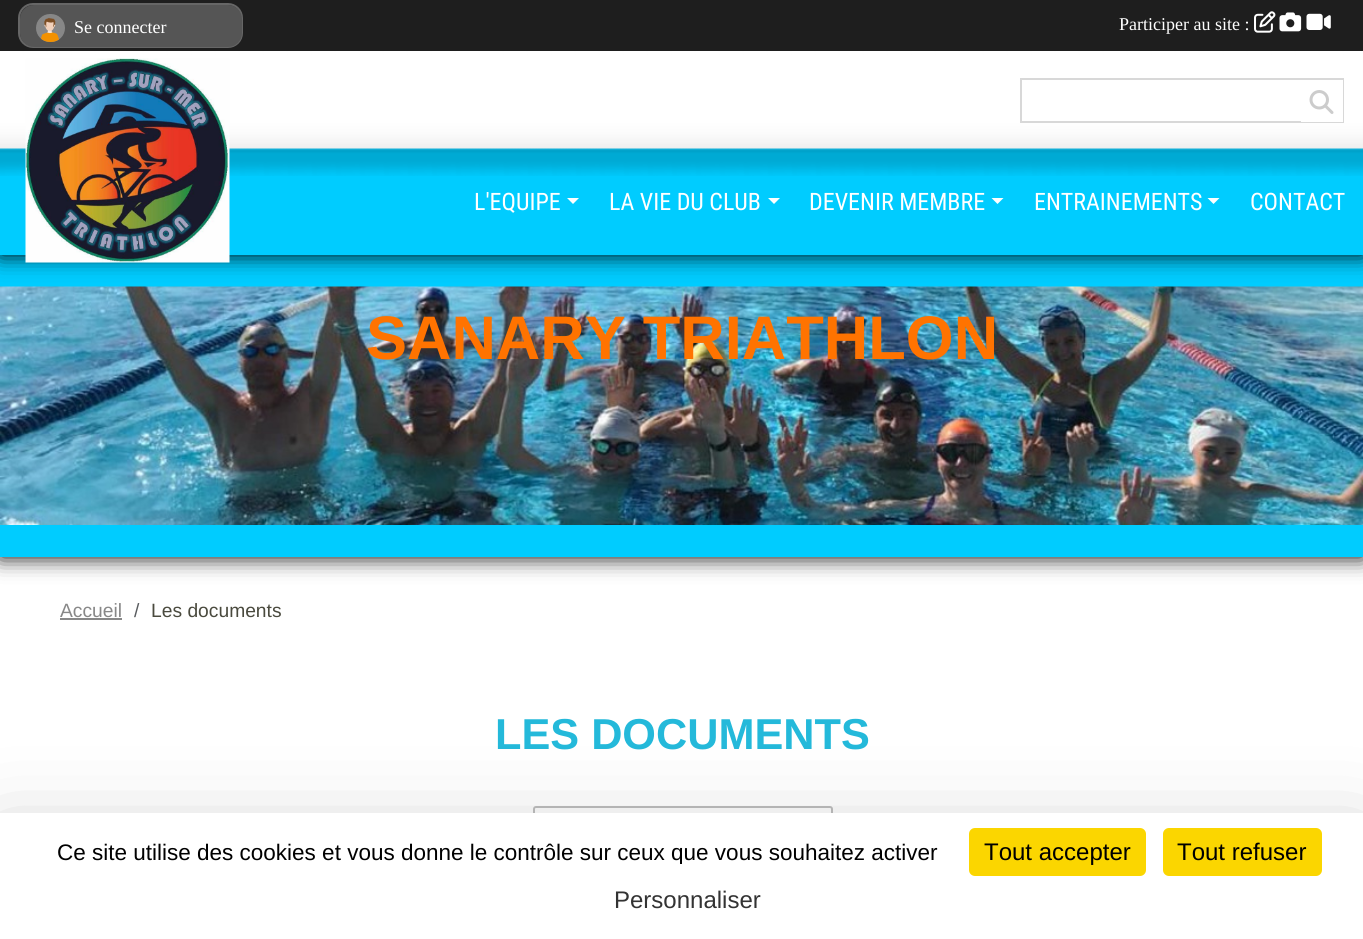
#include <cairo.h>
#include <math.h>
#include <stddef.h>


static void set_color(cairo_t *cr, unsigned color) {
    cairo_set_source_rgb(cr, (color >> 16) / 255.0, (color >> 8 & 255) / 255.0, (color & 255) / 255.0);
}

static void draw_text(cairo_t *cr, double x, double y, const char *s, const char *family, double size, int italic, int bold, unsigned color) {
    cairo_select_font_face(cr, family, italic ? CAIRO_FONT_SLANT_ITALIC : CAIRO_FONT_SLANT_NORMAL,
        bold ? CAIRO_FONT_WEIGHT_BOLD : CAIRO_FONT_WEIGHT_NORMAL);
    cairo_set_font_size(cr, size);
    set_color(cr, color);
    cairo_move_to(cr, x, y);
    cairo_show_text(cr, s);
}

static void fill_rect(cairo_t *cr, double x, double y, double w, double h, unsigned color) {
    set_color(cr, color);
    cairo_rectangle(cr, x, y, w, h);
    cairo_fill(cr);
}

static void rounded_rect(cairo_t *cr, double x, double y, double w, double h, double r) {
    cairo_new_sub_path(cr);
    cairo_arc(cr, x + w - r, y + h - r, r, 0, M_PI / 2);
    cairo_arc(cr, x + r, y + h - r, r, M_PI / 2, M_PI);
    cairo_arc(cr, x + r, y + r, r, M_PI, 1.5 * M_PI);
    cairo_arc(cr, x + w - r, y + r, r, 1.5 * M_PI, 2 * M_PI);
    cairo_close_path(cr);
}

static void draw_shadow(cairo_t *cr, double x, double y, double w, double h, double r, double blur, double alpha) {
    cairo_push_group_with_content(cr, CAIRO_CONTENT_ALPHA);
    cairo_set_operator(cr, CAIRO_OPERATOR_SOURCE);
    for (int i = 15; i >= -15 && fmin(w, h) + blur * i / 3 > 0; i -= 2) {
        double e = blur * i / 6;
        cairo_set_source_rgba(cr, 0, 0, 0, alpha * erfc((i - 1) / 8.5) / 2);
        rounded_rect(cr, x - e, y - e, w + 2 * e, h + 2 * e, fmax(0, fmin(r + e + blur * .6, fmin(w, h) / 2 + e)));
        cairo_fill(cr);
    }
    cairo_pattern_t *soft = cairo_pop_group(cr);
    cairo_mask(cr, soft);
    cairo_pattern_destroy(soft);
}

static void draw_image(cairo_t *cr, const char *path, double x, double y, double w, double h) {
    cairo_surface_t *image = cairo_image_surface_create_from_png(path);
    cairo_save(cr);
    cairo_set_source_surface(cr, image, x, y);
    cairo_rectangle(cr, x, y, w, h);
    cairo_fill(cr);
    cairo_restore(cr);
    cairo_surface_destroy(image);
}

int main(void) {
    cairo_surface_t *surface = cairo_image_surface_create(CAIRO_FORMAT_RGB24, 1363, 939);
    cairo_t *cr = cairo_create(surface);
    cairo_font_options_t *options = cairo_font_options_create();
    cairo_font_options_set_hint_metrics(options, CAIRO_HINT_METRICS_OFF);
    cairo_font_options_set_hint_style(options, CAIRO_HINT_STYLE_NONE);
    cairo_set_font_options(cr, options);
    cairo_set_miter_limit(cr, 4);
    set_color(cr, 0xFFFFFF);
    cairo_paint(cr);
    set_color(cr, 0x000000);
    draw_shadow(cr, 0, 255, 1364, 302, 0, 11, 1);
    fill_rect(cr, 0, 255, 1363, 302, 0x00CCFF);
    draw_image(cr, "assets/img8.png", 0, 286, 1363, 239);
    set_color(cr, 0x000000);
    draw_shadow(cr, 0, 51, 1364, 204, 0, 11, 1);
    fill_rect(cr, 0, 0, 1363, 51, 0x1E1E1E);
    set_color(cr, 0x333333);
    rounded_rect(cr, 19, 4, 223, 43, 14);
    cairo_fill_preserve(cr);
    set_color(cr, 0x666666);
    cairo_stroke(cr);
    set_color(cr, 0x555555);
    rounded_rect(cr, 20, 5, 222, 42, 14);
    cairo_fill(cr);
    draw_image(cr, "assets/img1.png", 36, 14, 29, 28);
    draw_text(cr, 74, 33, "Se connecter", "Liberation Serif", 18, 0, 0, 0xFFFFFF);
    draw_text(cr, 1119, 30, "Participer au site :", "Liberation Serif", 18, 0, 0, 0xFFFFFF);
    draw_image(cr, "assets/img2.png", 1254, 11, 22, 22);
    draw_image(cr, "assets/img3.png", 1279, 12, 23, 20);
    draw_image(cr, "assets/img4.png", 1306, 13, 25, 17);
    fill_rect(cr, 0, 148, 1363, 107, 0x00CCFF);
    draw_image(cr, "assets/img5.png", 0, 51, 1363, 125);
    draw_image(cr, "assets/img6.png", 25, 58, 205, 205);
    cairo_rectangle(cr, 1021, 79, 322, 43);
    set_color(cr, 0xD8D8D8);
    cairo_stroke(cr);
    fill_rect(cr, 1301, 80, 42, 42, 0xFFFFFF);
    draw_image(cr, "assets/img7.png", 1309, 90, 25, 24);
    draw_text(cr, 474, 210, "L'EQUIPE", "Roboto Condensed", 24, 0, 0, 0xFFFFFF);
    cairo_new_path(cr);
    cairo_move_to(cr, 567, 198);
    cairo_line_to(cr, 579, 198);
    cairo_line_to(cr, 573, 204);
    cairo_close_path(cr);
    cairo_fill(cr);
    draw_text(cr, 609, 210, "LA VIE DU CLUB", "Roboto Condensed", 24, 0, 0, 0xFFFFFF);
    cairo_new_path(cr);
    cairo_move_to(cr, 768, 198);
    cairo_line_to(cr, 780, 198);
    cairo_line_to(cr, 774, 204);
    cairo_close_path(cr);
    cairo_fill(cr);
    draw_text(cr, 809, 210, "DEVENIR MEMBRE", "Roboto Condensed", 24, 0, 0, 0xFFFFFF);
    cairo_new_path(cr);
    cairo_move_to(cr, 991.5, 198);
    cairo_line_to(cr, 1003.5, 198);
    cairo_line_to(cr, 997.5, 204);
    cairo_close_path(cr);
    cairo_fill(cr);
    draw_text(cr, 1034, 210, "ENTRAINEMENTS", "Roboto Condensed", 24, 0, 0, 0xFFFFFF);
    cairo_new_path(cr);
    cairo_move_to(cr, 1207.5, 198);
    cairo_line_to(cr, 1219.5, 198);
    cairo_line_to(cr, 1213.5, 204);
    cairo_close_path(cr);
    cairo_fill(cr);
    draw_text(cr, 1250, 210, "CONTACT", "Roboto Condensed", 24, 0, 0, 0xFFFFFF);
    draw_text(cr, 366, 359, "SANARY TRIATHLON", "Liberation Sans", 61.5, 0, 1, 0xFF7300);
    draw_text(cr, 60, 617, "Accueil", "Liberation Sans", 19.25, 0, 0, 0x888888);
    fill_rect(cr, 60, 618, 62, 2, 0x888888);
    draw_text(cr, 134, 617, "/", "Liberation Sans", 19.25, 0, 0, 0x595C5F);
    draw_text(cr, 151, 617, "Les documents", "Liberation Sans", 19.25, 0, 0, 0x4A4A3E);
    draw_text(cr, 495, 749, "LES DOCUMENTS", "Liberation Sans", 43.25, 0, 1, 0x24B9DA);
    rounded_rect(cr, 534, 807, 298, 47, 2);
    set_color(cr, 0xC0C0C0);
    cairo_stroke(cr);
    set_color(cr, 0x000000);
    draw_shadow(cr, 0, 843, 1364, 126, 0, 45, 0.25);
    fill_rect(cr, 0, 813, 1363, 126, 0xFFFFFF);
    cairo_save(cr);
    cairo_rectangle(cr, 42, 839, 911, 25);
    cairo_clip(cr);
    draw_text(cr, 57, 860, "Ce site utilise des cookies et vous donne le contrôle sur ceux que vous souhaitez activer", "Liberation Sans", 22.5, 0, 0, 0x000000);
    cairo_restore(cr);
    set_color(cr, 0xFBD600);
    rounded_rect(cr, 969, 828, 177, 48, 6);
    cairo_fill(cr);
    draw_text(cr, 984, 860, "Tout accepter", "Liberation Sans", 24, 0, 0, 0x000000);
    set_color(cr, 0xFBD600);
    rounded_rect(cr, 1163, 828, 159, 48, 6);
    cairo_fill(cr);
    draw_text(cr, 1177, 860, "Tout refuser", "Liberation Sans", 24, 0, 0, 0x000000);
    draw_text(cr, 614, 908, "Personnaliser", "Liberation Sans", 24, 0, 0, 0x333333);
    cairo_surface_write_to_png(surface, "output.png");
    cairo_font_options_destroy(options);
    cairo_destroy(cr);
    cairo_surface_destroy(surface);
    return 0;
}
